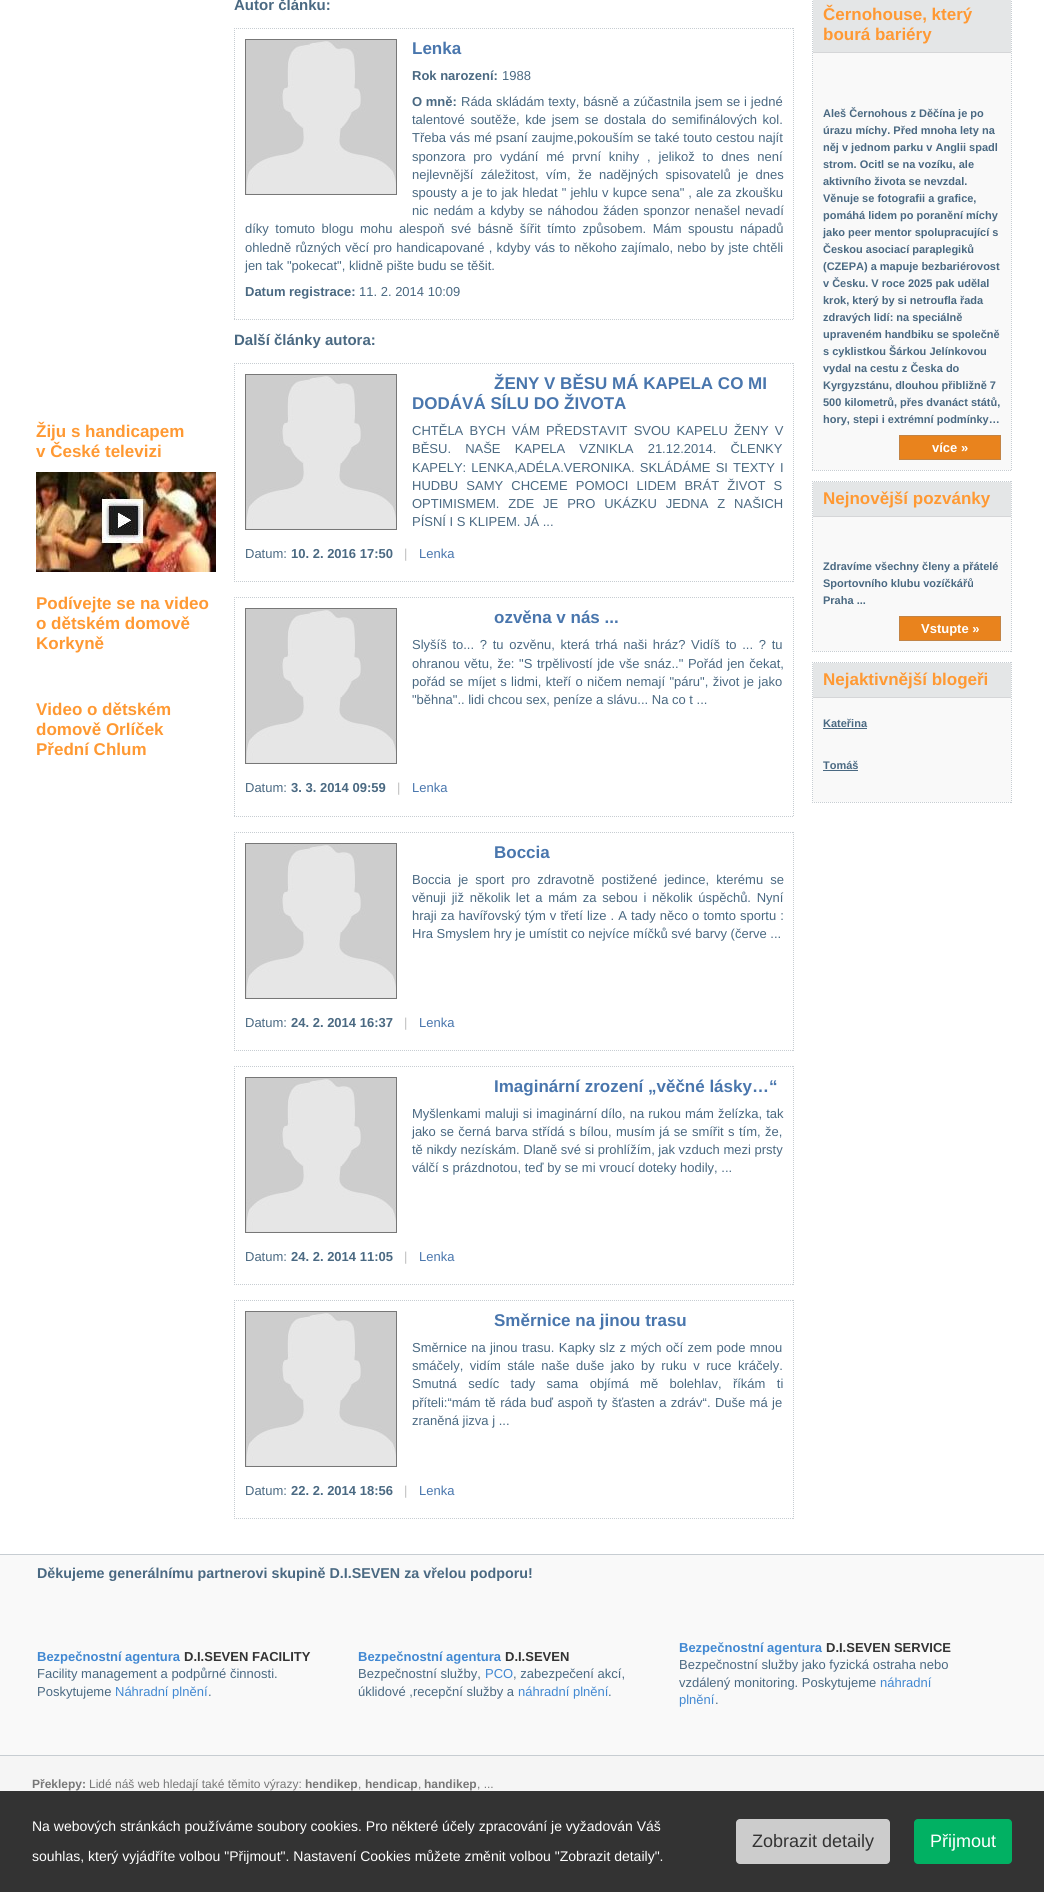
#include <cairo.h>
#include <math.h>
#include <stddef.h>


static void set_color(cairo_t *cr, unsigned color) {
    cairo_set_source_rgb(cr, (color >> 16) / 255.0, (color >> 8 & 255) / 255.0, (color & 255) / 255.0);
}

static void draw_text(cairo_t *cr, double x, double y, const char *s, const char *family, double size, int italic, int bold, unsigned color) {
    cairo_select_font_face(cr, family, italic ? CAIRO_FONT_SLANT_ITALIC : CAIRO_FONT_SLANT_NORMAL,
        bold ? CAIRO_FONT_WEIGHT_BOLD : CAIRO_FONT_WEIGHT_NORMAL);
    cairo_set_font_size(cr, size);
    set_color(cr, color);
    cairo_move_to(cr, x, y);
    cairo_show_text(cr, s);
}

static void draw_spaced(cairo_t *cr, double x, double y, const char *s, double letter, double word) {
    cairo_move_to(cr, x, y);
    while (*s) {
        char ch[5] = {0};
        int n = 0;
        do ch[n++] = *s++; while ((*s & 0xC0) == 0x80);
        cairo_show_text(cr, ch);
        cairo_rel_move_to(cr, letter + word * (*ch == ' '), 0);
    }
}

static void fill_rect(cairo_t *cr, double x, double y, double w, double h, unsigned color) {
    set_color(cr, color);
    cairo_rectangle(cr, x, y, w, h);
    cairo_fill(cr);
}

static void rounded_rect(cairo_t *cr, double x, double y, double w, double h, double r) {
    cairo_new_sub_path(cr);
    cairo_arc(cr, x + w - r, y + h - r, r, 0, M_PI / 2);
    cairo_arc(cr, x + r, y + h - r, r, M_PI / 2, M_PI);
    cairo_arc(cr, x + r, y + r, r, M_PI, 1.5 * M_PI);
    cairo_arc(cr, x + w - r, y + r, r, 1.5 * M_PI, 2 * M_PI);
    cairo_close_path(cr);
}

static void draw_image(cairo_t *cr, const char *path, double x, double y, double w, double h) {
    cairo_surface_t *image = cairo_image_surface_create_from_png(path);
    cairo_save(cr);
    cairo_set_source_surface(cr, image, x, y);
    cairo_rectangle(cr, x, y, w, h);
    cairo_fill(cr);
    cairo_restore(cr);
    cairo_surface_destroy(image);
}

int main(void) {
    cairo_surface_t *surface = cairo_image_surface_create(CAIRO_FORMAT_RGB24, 1044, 1892);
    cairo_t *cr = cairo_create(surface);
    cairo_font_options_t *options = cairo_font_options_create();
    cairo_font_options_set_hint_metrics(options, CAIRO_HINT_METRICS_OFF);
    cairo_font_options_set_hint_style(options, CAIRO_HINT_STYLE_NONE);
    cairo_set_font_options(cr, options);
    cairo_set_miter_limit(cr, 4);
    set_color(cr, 0xFFFFFF);
    cairo_paint(cr);
    draw_text(cr, 36, 437, "Žiju s handicapem", "Liberation Sans", 17, 0, 1, 0xFF9933);
    draw_text(cr, 36, 457, "v České televizi", "Liberation Sans", 17, 0, 1, 0xFF9933);
    draw_image(cr, "assets/img1.png", 36, 472, 180, 100);
    draw_text(cr, 36, 609, "Podívejte se na video", "Liberation Sans", 17, 0, 1, 0xFF9933);
    draw_text(cr, 36, 629, "o dětském domově", "Liberation Sans", 17, 0, 1, 0xFF9933);
    draw_text(cr, 36, 649, "Korkyně", "Liberation Sans", 17, 0, 1, 0xFF9933);
    draw_text(cr, 36, 715, "Video o dětském", "Liberation Sans", 17, 0, 1, 0xFF9933);
    draw_text(cr, 36, 735, "domově Orlíček", "Liberation Sans", 17, 0, 1, 0xFF9933);
    draw_text(cr, 36, 755, "Přední Chlum", "Liberation Sans", 17, 0, 1, 0xFF9933);
    draw_text(cr, 234, 10, "Autor článku:", "Liberation Sans", 15, 0, 1, 0x4A6982);
    cairo_new_path(cr);
    cairo_move_to(cr, 234, 28.5);
    cairo_line_to(cr, 794, 28.5);
    set_color(cr, 0xC7CDD2);
    cairo_set_line_width(cr, 1);
    cairo_set_dash(cr, (double[]){1, 1}, 2, 0);
    cairo_stroke(cr);
    cairo_new_path(cr);
    cairo_move_to(cr, 793.5, 28);
    cairo_line_to(cr, 793.5, 320);
    cairo_stroke(cr);
    cairo_new_path(cr);
    cairo_move_to(cr, 234, 319.5);
    cairo_line_to(cr, 794, 319.5);
    cairo_stroke(cr);
    cairo_new_path(cr);
    cairo_move_to(cr, 234.5, 28);
    cairo_line_to(cr, 234.5, 320);
    cairo_stroke(cr);
    cairo_rectangle(cr, 245.5, 39.5, 151, 155);
    set_color(cr, 0x777777);
    cairo_set_dash(cr, NULL, 0, 0);
    cairo_stroke(cr);
    draw_image(cr, "assets/img2.png", 246, 40, 150, 154);
    draw_text(cr, 412, 54, "Lenka", "Liberation Sans", 17, 0, 1, 0x4976AD);
    draw_text(cr, 412, 80, "Rok narození:", "Liberation Sans", 13, 0, 1, 0x4A6982);
    draw_text(cr, 502, 80, "1988", "Liberation Sans", 13, 0, 0, 0x4A6982);
    draw_text(cr, 412, 106, "O mně:", "Liberation Sans", 13, 0, 1, 0x4A6982);
    cairo_select_font_face(cr, "Liberation Sans", CAIRO_FONT_SLANT_NORMAL, CAIRO_FONT_WEIGHT_NORMAL);
    draw_spaced(cr, 461, 106, "Ráda skládám texty, básně a zúčastnila jsem se i jedné", 0, 0.25);
    draw_spaced(cr, 412, 124, "talentové soutěže, kde jsem se dostala do semifinálových kol.", 0, 2);
    draw_spaced(cr, 412, 142, "Třeba vás mé psaní zaujme,pokouším se také touto cestou najít", 0, 0.25);
    draw_spaced(cr, 412, 161, "sponzora pro vydání mé první knihy , jelikož to dnes není", 0, 4.25);
    draw_spaced(cr, 412, 179, "nejlevnější záležitost, vím, že nadějných spisovatelů je dnes", 0, 3.75);
    draw_spaced(cr, 412, 197, "spousty a je to jak hledat \" jehlu v kupce sena\" , ale za zkoušku", 0, 0.5);
    draw_spaced(cr, 412, 215, "nic nedám a kdyby se náhodou žáden sponzor nenašel nevadí", 0, 1.25);
    draw_spaced(cr, 245, 233, "díky tomuto blogu mohu alespoň své básně šířit tímto způsobem. Mám spoustu nápadů", 0, 2.9);
    draw_spaced(cr, 245, 252, "ohledně různých věcí pro handicapované , kdyby vás to někoho zajímalo, nebo by jste chtěli", 0, 0.6);
    draw_text(cr, 245, 270, "jen tak \"pokecat\", klidně pište budu se těšit.", "Liberation Sans", 13, 0, 0, 0x4A6982);
    draw_text(cr, 245, 296, "Datum registrace:", "Liberation Sans", 13, 0, 1, 0x4A6982);
    draw_text(cr, 359, 296, "11. 2. 2014 10:09", "Liberation Sans", 13, 0, 0, 0x4A6982);
    draw_text(cr, 234, 345, "Další články autora:", "Liberation Sans", 15, 0, 1, 0x4A6982);
    cairo_new_path(cr);
    cairo_move_to(cr, 234, 363.5);
    cairo_line_to(cr, 794, 363.5);
    set_color(cr, 0xC7CDD2);
    cairo_set_dash(cr, (double[]){1, 1}, 2, 0);
    cairo_stroke(cr);
    cairo_new_path(cr);
    cairo_move_to(cr, 793.5, 363);
    cairo_line_to(cr, 793.5, 582);
    cairo_stroke(cr);
    cairo_new_path(cr);
    cairo_move_to(cr, 234, 581.5);
    cairo_line_to(cr, 794, 581.5);
    cairo_stroke(cr);
    cairo_new_path(cr);
    cairo_move_to(cr, 234.5, 363);
    cairo_line_to(cr, 234.5, 582);
    cairo_stroke(cr);
    cairo_rectangle(cr, 245.5, 374.5, 151, 155);
    set_color(cr, 0x777777);
    cairo_set_dash(cr, NULL, 0, 0);
    cairo_stroke(cr);
    draw_image(cr, "assets/img2.png", 246, 375, 150, 154);
    draw_text(cr, 494, 389, "ŽENY V BĚSU MÁ KAPELA CO MI", "Liberation Sans", 17, 0, 1, 0x4976AD);
    draw_text(cr, 412, 409, "DODÁVÁ SÍLU DO ŽIVOTA", "Liberation Sans", 17, 0, 1, 0x4976AD);
    cairo_select_font_face(cr, "Liberation Sans", CAIRO_FONT_SLANT_NORMAL, CAIRO_FONT_WEIGHT_NORMAL);
    cairo_set_font_size(cr, 13);
    set_color(cr, 0x4A6982);
    draw_spaced(cr, 412, 435, "CHTĚLA BYCH VÁM PŘEDSTAVIT SVOU KAPELU ŽENY V", 0, 2.5);
    draw_spaced(cr, 412, 453, "BĚSU. NAŠE KAPELA VZNIKLA 21.12.2014. ČLENKY", 0, 10.5);
    draw_spaced(cr, 412, 472, "KAPELY: LENKA,ADÉLA.VERONIKA. SKLÁDÁME SI TEXTY I", 0, 1.5);
    draw_spaced(cr, 412, 490, "HUDBU SAMY CHCEME POMOCI LIDEM BRÁT ŽIVOT S", 0, 4.5);
    draw_spaced(cr, 412, 508, "OPTIMISMEM. ZDE JE PRO UKÁZKU JEDNA Z NAŠICH", 0, 5.25);
    draw_text(cr, 412, 526, "PÍSNÍ I S KLIPEM. JÁ ...", "Liberation Sans", 13, 0, 0, 0x4A6982);
    draw_text(cr, 245, 558, "Datum:", "Liberation Sans", 13, 0, 0, 0x4A6982);
    draw_text(cr, 291, 558, "10. 2. 2016 17:50", "Liberation Sans", 13, 0, 1, 0x4A6982);
    draw_text(cr, 404, 558, "|", "Liberation Sans", 13, 0, 0, 0xBEBEBE);
    draw_text(cr, 419, 558, "Lenka", "Liberation Sans", 13, 0, 0, 0x4976AD);
    cairo_new_path(cr);
    cairo_move_to(cr, 234, 597.5);
    cairo_line_to(cr, 794, 597.5);
    set_color(cr, 0xC7CDD2);
    cairo_set_dash(cr, (double[]){1, 1}, 2, 0);
    cairo_stroke(cr);
    cairo_new_path(cr);
    cairo_move_to(cr, 793.5, 597);
    cairo_line_to(cr, 793.5, 817);
    cairo_stroke(cr);
    cairo_new_path(cr);
    cairo_move_to(cr, 234, 816.5);
    cairo_line_to(cr, 794, 816.5);
    cairo_stroke(cr);
    cairo_new_path(cr);
    cairo_move_to(cr, 234.5, 597);
    cairo_line_to(cr, 234.5, 817);
    cairo_stroke(cr);
    cairo_rectangle(cr, 245.5, 608.5, 151, 155);
    set_color(cr, 0x777777);
    cairo_set_dash(cr, NULL, 0, 0);
    cairo_stroke(cr);
    draw_image(cr, "assets/img2.png", 246, 609, 150, 154);
    draw_text(cr, 494, 623, "ozvěna v nás ...", "Liberation Sans", 17, 0, 1, 0x4976AD);
    cairo_select_font_face(cr, "Liberation Sans", CAIRO_FONT_SLANT_NORMAL, CAIRO_FONT_WEIGHT_NORMAL);
    cairo_set_font_size(cr, 13);
    set_color(cr, 0x4A6982);
    draw_spaced(cr, 412, 649, "Slyšíš to... ? tu ozvěnu, která trhá naši hráz? Vidíš to ... ? tu", 0, 2.1);
    draw_spaced(cr, 412, 668, "ohranou větu, že: \"S trpělivostí jde vše snáz..\" Pořád jen čekat,", 0, 1);
    draw_spaced(cr, 412, 686, "pořád se míjet s lidmi, kteří o ničem nemají \"páru\", život je jako", 0, 0.75);
    draw_text(cr, 412, 704, "\"běhna\".. lidi chcou sex, peníze a slávu... Na co t ...", "Liberation Sans", 13, 0, 0, 0x4A6982);
    draw_text(cr, 245, 792, "Datum:", "Liberation Sans", 13, 0, 0, 0x4A6982);
    draw_text(cr, 291, 792, "3. 3. 2014 09:59", "Liberation Sans", 13, 0, 1, 0x4A6982);
    draw_text(cr, 397, 792, "|", "Liberation Sans", 13, 0, 0, 0xBEBEBE);
    draw_text(cr, 412, 792, "Lenka", "Liberation Sans", 13, 0, 0, 0x4976AD);
    cairo_new_path(cr);
    cairo_move_to(cr, 234, 832.5);
    cairo_line_to(cr, 794, 832.5);
    set_color(cr, 0xC7CDD2);
    cairo_set_dash(cr, (double[]){1, 1}, 2, 0);
    cairo_stroke(cr);
    cairo_new_path(cr);
    cairo_move_to(cr, 793.5, 832);
    cairo_line_to(cr, 793.5, 1051);
    cairo_stroke(cr);
    cairo_new_path(cr);
    cairo_move_to(cr, 234, 1050.5);
    cairo_line_to(cr, 794, 1050.5);
    cairo_stroke(cr);
    cairo_new_path(cr);
    cairo_move_to(cr, 234.5, 832);
    cairo_line_to(cr, 234.5, 1051);
    cairo_stroke(cr);
    cairo_rectangle(cr, 245.5, 843.5, 151, 155);
    set_color(cr, 0x777777);
    cairo_set_dash(cr, NULL, 0, 0);
    cairo_stroke(cr);
    draw_image(cr, "assets/img2.png", 246, 844, 150, 154);
    draw_text(cr, 494, 858, "Boccia", "Liberation Sans", 17, 0, 1, 0x4976AD);
    cairo_select_font_face(cr, "Liberation Sans", CAIRO_FONT_SLANT_NORMAL, CAIRO_FONT_WEIGHT_NORMAL);
    cairo_set_font_size(cr, 13);
    set_color(cr, 0x4A6982);
    draw_spaced(cr, 412, 884, "Boccia je sport pro zdravotně postižené jedince, kterému se", 0, 3.5);
    draw_spaced(cr, 412, 902, "věnuji již několik let a mám za sebou i několik úspěchů. Nyní", 0, 2.1);
    draw_spaced(cr, 412, 920, "hraji za havířovský tým v třetí lize . A tady něco o tomto sportu :", 0, 0.5);
    draw_text(cr, 412, 938, "Hra Smyslem hry je umístit co nejvíce míčků své barvy (červe ...", "Liberation Sans", 13, 0, 0, 0x4A6982);
    draw_text(cr, 245, 1027, "Datum:", "Liberation Sans", 13, 0, 0, 0x4A6982);
    draw_text(cr, 291, 1027, "24. 2. 2014 16:37", "Liberation Sans", 13, 0, 1, 0x4A6982);
    draw_text(cr, 404, 1027, "|", "Liberation Sans", 13, 0, 0, 0xBEBEBE);
    draw_text(cr, 419, 1027, "Lenka", "Liberation Sans", 13, 0, 0, 0x4976AD);
    cairo_new_path(cr);
    cairo_move_to(cr, 234, 1066.5);
    cairo_line_to(cr, 794, 1066.5);
    set_color(cr, 0xC7CDD2);
    cairo_set_dash(cr, (double[]){1, 1}, 2, 0);
    cairo_stroke(cr);
    cairo_new_path(cr);
    cairo_move_to(cr, 793.5, 1066);
    cairo_line_to(cr, 793.5, 1285);
    cairo_stroke(cr);
    cairo_new_path(cr);
    cairo_move_to(cr, 234, 1284.5);
    cairo_line_to(cr, 794, 1284.5);
    cairo_stroke(cr);
    cairo_new_path(cr);
    cairo_move_to(cr, 234.5, 1066);
    cairo_line_to(cr, 234.5, 1285);
    cairo_stroke(cr);
    cairo_rectangle(cr, 245.5, 1077.5, 151, 155);
    set_color(cr, 0x777777);
    cairo_set_dash(cr, NULL, 0, 0);
    cairo_stroke(cr);
    draw_image(cr, "assets/img2.png", 246, 1078, 150, 154);
    draw_text(cr, 494, 1092, "Imaginární zrození „věčné lásky…“", "Liberation Sans", 17, 0, 1, 0x4976AD);
    cairo_select_font_face(cr, "Liberation Sans", CAIRO_FONT_SLANT_NORMAL, CAIRO_FONT_WEIGHT_NORMAL);
    cairo_set_font_size(cr, 13);
    set_color(cr, 0x4A6982);
    draw_spaced(cr, 412, 1118, "Myšlenkami maluji si imaginární dílo, na rukou mám želízka, tak", 0, 0.5);
    draw_spaced(cr, 412, 1136, "jako se černá barva střídá s bílou, musím já se smířit s tím, že,", 0, 0.75);
    draw_text(cr, 412, 1154, "tě nikdy nezískám. Dlaně své si prohlížím, jak vzduch mezi prsty", "Liberation Sans", 13, 0, 0, 0x4A6982);
    draw_text(cr, 412, 1172, "válčí s prázdnotou, teď by se mi vroucí doteky hodily, ...", "Liberation Sans", 13, 0, 0, 0x4A6982);
    draw_text(cr, 245, 1261, "Datum:", "Liberation Sans", 13, 0, 0, 0x4A6982);
    draw_text(cr, 291, 1261, "24. 2. 2014 11:05", "Liberation Sans", 13, 0, 1, 0x4A6982);
    draw_text(cr, 404, 1261, "|", "Liberation Sans", 13, 0, 0, 0xBEBEBE);
    draw_text(cr, 419, 1261, "Lenka", "Liberation Sans", 13, 0, 0, 0x4976AD);
    cairo_new_path(cr);
    cairo_move_to(cr, 234, 1300.5);
    cairo_line_to(cr, 794, 1300.5);
    set_color(cr, 0xC7CDD2);
    cairo_set_dash(cr, (double[]){1, 1}, 2, 0);
    cairo_stroke(cr);
    cairo_new_path(cr);
    cairo_move_to(cr, 793.5, 1300);
    cairo_line_to(cr, 793.5, 1519);
    cairo_stroke(cr);
    cairo_new_path(cr);
    cairo_move_to(cr, 234, 1518.5);
    cairo_line_to(cr, 794, 1518.5);
    cairo_stroke(cr);
    cairo_new_path(cr);
    cairo_move_to(cr, 234.5, 1300);
    cairo_line_to(cr, 234.5, 1519);
    cairo_stroke(cr);
    cairo_rectangle(cr, 245.5, 1311.5, 151, 155);
    set_color(cr, 0x777777);
    cairo_set_dash(cr, NULL, 0, 0);
    cairo_stroke(cr);
    draw_image(cr, "assets/img2.png", 246, 1312, 150, 154);
    draw_text(cr, 494, 1326, "Směrnice na jinou trasu", "Liberation Sans", 17, 0, 1, 0x4976AD);
    cairo_select_font_face(cr, "Liberation Sans", CAIRO_FONT_SLANT_NORMAL, CAIRO_FONT_WEIGHT_NORMAL);
    cairo_set_font_size(cr, 13);
    set_color(cr, 0x4A6982);
    draw_spaced(cr, 412, 1352, "Směrnice na jinou trasu. Kapky slz z mých očí zem pode mnou", 0, 0.75);
    draw_spaced(cr, 412, 1370, "smáčely, vidím stále naše duše jako by ruku v ruce kráčely.", 0, 2.9);
    draw_spaced(cr, 412, 1388, "Smutná sedíc tady sama objímá mě bolehlav, říkám ti", 0, 7.75);
    draw_spaced(cr, 412, 1407, "příteli:“mám tě ráda buď aspoň ty šťasten a zdráv“. Duše má je", 0, 0.75);
    draw_text(cr, 412, 1425, "zraněná jizva j ...", "Liberation Sans", 13, 0, 0, 0x4A6982);
    draw_text(cr, 245, 1495, "Datum:", "Liberation Sans", 13, 0, 0, 0x4A6982);
    draw_text(cr, 291, 1495, "22. 2. 2014 18:56", "Liberation Sans", 13, 0, 1, 0x4A6982);
    draw_text(cr, 404, 1495, "|", "Liberation Sans", 13, 0, 0, 0xBEBEBE);
    draw_text(cr, 419, 1495, "Lenka", "Liberation Sans", 13, 0, 0, 0x4976AD);
    cairo_new_path(cr);
    cairo_move_to(cr, 1011.5, -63);
    cairo_line_to(cr, 1011.5, 471);
    set_color(cr, 0xC7CDD2);
    cairo_set_dash(cr, (double[]){1, 1}, 2, 0);
    cairo_stroke(cr);
    cairo_new_path(cr);
    cairo_move_to(cr, 812, 470.5);
    cairo_line_to(cr, 1012, 470.5);
    cairo_stroke(cr);
    cairo_new_path(cr);
    cairo_move_to(cr, 812.5, -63);
    cairo_line_to(cr, 812.5, 471);
    cairo_stroke(cr);
    fill_rect(cr, 813, 0, 198, 52, 0xE4E6E7);
    fill_rect(cr, 813, 52, 198, 1, 0xD5D6D8);
    draw_text(cr, 823, 20, "Černohouse, který", "Liberation Sans", 17, 0, 1, 0xFF9933);
    draw_text(cr, 823, 40, "bourá bariéry", "Liberation Sans", 17, 0, 1, 0xFF9933);
    fill_rect(cr, 813, 53, 198, 417, 0xF9F9F9);
    draw_text(cr, 823, 117, "Aleš Černohous z Děčína je po", "Liberation Sans", 11, 0, 1, 0x4A6982);
    draw_text(cr, 823, 134, "úrazu míchy. Před mnoha lety na", "Liberation Sans", 11, 0, 1, 0x4A6982);
    draw_text(cr, 823, 151, "něj v jednom parku v Anglii spadl", "Liberation Sans", 11, 0, 1, 0x4A6982);
    draw_text(cr, 823, 168, "strom. Ocitl se na vozíku, ale", "Liberation Sans", 11, 0, 1, 0x4A6982);
    draw_text(cr, 823, 185, "aktivního života se nevzdal.", "Liberation Sans", 11, 0, 1, 0x4A6982);
    draw_text(cr, 823, 202, "Věnuje se fotografii a grafice,", "Liberation Sans", 11, 0, 1, 0x4A6982);
    draw_text(cr, 823, 219, "pomáhá lidem po poranění míchy", "Liberation Sans", 11, 0, 1, 0x4A6982);
    draw_text(cr, 823, 236, "jako peer mentor spolupracující s", "Liberation Sans", 11, 0, 1, 0x4A6982);
    draw_text(cr, 823, 253, "Českou asociací paraplegiků", "Liberation Sans", 11, 0, 1, 0x4A6982);
    draw_text(cr, 823, 270, "(CZEPA) a mapuje bezbariérovost", "Liberation Sans", 11, 0, 1, 0x4A6982);
    draw_text(cr, 823, 287, "v Česku. V roce 2025 pak udělal", "Liberation Sans", 11, 0, 1, 0x4A6982);
    draw_text(cr, 823, 304, "krok, který by si netroufla řada", "Liberation Sans", 11, 0, 1, 0x4A6982);
    draw_text(cr, 823, 321, "zdravých lidí: na speciálně", "Liberation Sans", 11, 0, 1, 0x4A6982);
    draw_text(cr, 823, 338, "upraveném handbiku se společně", "Liberation Sans", 11, 0, 1, 0x4A6982);
    draw_text(cr, 823, 355, "s cyklistkou Šárkou Jelínkovou", "Liberation Sans", 11, 0, 1, 0x4A6982);
    draw_text(cr, 823, 372, "vydal na cestu z Česka do", "Liberation Sans", 11, 0, 1, 0x4A6982);
    draw_text(cr, 823, 389, "Kyrgyzstánu, dlouhou přibližně 7", "Liberation Sans", 11, 0, 1, 0x4A6982);
    draw_text(cr, 823, 406, "500 kilometrů, přes dvanáct států,", "Liberation Sans", 11, 0, 1, 0x4A6982);
    draw_text(cr, 823, 423, "hory, stepi i extrémní podmínky…", "Liberation Sans", 11, 0, 1, 0x4A6982);
    set_color(cr, 0xE9831D);
    cairo_rectangle(cr, 899.5, 435.5, 101, 24);
    cairo_fill_preserve(cr);
    set_color(cr, 0xC28446);
    cairo_set_dash(cr, NULL, 0, 0);
    cairo_stroke(cr);
    draw_text(cr, 932, 452, "více »", "Liberation Sans", 13, 0, 1, 0xFFFFFF);
    cairo_new_path(cr);
    cairo_move_to(cr, 812, 481.5);
    cairo_line_to(cr, 1012, 481.5);
    set_color(cr, 0xC7CDD2);
    cairo_set_dash(cr, (double[]){1, 1}, 2, 0);
    cairo_stroke(cr);
    cairo_new_path(cr);
    cairo_move_to(cr, 1011.5, 481);
    cairo_line_to(cr, 1011.5, 652);
    cairo_stroke(cr);
    cairo_new_path(cr);
    cairo_move_to(cr, 812, 651.5);
    cairo_line_to(cr, 1012, 651.5);
    cairo_stroke(cr);
    cairo_new_path(cr);
    cairo_move_to(cr, 812.5, 481);
    cairo_line_to(cr, 812.5, 652);
    cairo_stroke(cr);
    fill_rect(cr, 813, 482, 198, 34, 0xE4E6E7);
    fill_rect(cr, 813, 516, 198, 1, 0xD5D6D8);
    draw_text(cr, 823, 504, "Nejnovější pozvánky", "Liberation Sans", 17, 0, 1, 0xFF9933);
    fill_rect(cr, 813, 517, 198, 134, 0xF9F9F9);
    draw_text(cr, 823, 570, "Zdravíme všechny členy a přátelé", "Liberation Sans", 11, 0, 1, 0x4A6982);
    draw_text(cr, 823, 587, "Sportovního klubu vozíčkářů", "Liberation Sans", 11, 0, 1, 0x4A6982);
    draw_text(cr, 823, 604, "Praha ...", "Liberation Sans", 11, 0, 1, 0x4A6982);
    set_color(cr, 0xE9831D);
    cairo_rectangle(cr, 899.5, 616.5, 101, 24);
    cairo_fill_preserve(cr);
    set_color(cr, 0xC28446);
    cairo_set_dash(cr, NULL, 0, 0);
    cairo_stroke(cr);
    draw_text(cr, 921, 633, "Vstupte »", "Liberation Sans", 13, 0, 1, 0xFFFFFF);
    cairo_new_path(cr);
    cairo_move_to(cr, 812, 662.5);
    cairo_line_to(cr, 1012, 662.5);
    set_color(cr, 0xC7CDD2);
    cairo_set_dash(cr, (double[]){1, 1}, 2, 0);
    cairo_stroke(cr);
    cairo_new_path(cr);
    cairo_move_to(cr, 1011.5, 662);
    cairo_line_to(cr, 1011.5, 803);
    cairo_stroke(cr);
    cairo_new_path(cr);
    cairo_move_to(cr, 812, 802.5);
    cairo_line_to(cr, 1012, 802.5);
    cairo_stroke(cr);
    cairo_new_path(cr);
    cairo_move_to(cr, 812.5, 662);
    cairo_line_to(cr, 812.5, 803);
    cairo_stroke(cr);
    fill_rect(cr, 813, 663, 198, 34, 0xE4E6E7);
    fill_rect(cr, 813, 697, 198, 1, 0xD5D6D8);
    draw_text(cr, 823, 685, "Nejaktivnější blogeři", "Liberation Sans", 17, 0, 1, 0xFF9933);
    fill_rect(cr, 813, 698, 198, 104, 0xF9F9F9);
    draw_text(cr, 823, 727, "Kateřina", "Liberation Sans", 11, 0, 1, 0x4A6982);
    fill_rect(cr, 823, 728, 44, 1, 0x4A6982);
    draw_text(cr, 823, 769, "Tomáš", "Liberation Sans", 11, 0, 1, 0x4A6982);
    fill_rect(cr, 823, 770, 35, 1, 0x4A6982);
    fill_rect(cr, 0, 1555, 1044, 200, 0xF9F9F9);
    fill_rect(cr, 0, 1554, 1044, 1, 0xC7CDD2);
    draw_text(cr, 37, 1578, "Děkujeme generálnímu partnerovi skupině D.I.SEVEN za vřelou podporu!", "Liberation Sans", 14.3, 0, 1, 0x4A6982);
    draw_text(cr, 37, 1661, "Bezpečnostní agentura", "Liberation Sans", 13, 0, 1, 0x4188D2);
    draw_text(cr, 184, 1661, "D.I.SEVEN FACILITY", "Liberation Sans", 13, 0, 1, 0x333333);
    draw_text(cr, 37, 1678, "Facility management a podpůrné činnosti.", "Liberation Sans", 13, 0, 0, 0x4A6982);
    draw_text(cr, 37, 1696, "Poskytujeme", "Liberation Sans", 13, 0, 0, 0x4A6982);
    draw_text(cr, 115, 1696, "Náhradní plnění", "Liberation Sans", 13, 0, 0, 0x4188D2);
    draw_text(cr, 208, 1696, ".", "Liberation Sans", 13, 0, 0, 0x4A6982);
    draw_text(cr, 358, 1661, "Bezpečnostní agentura", "Liberation Sans", 13, 0, 1, 0x4188D2);
    draw_text(cr, 505, 1661, "D.I.SEVEN", "Liberation Sans", 13, 0, 1, 0x333333);
    draw_text(cr, 358, 1678, "Bezpečnostní služby,", "Liberation Sans", 13, 0, 0, 0x4A6982);
    draw_text(cr, 485, 1678, "PCO", "Liberation Sans", 13, 0, 0, 0x4188D2);
    draw_text(cr, 513, 1678, ", zabezpečení akcí,", "Liberation Sans", 13, 0, 0, 0x4A6982);
    draw_text(cr, 358, 1696, "úklidové ,recepční služby a", "Liberation Sans", 13, 0, 0, 0x4A6982);
    draw_text(cr, 518, 1696, "náhradní plnění", "Liberation Sans", 13, 0, 0, 0x4188D2);
    draw_text(cr, 608, 1696, ".", "Liberation Sans", 13, 0, 0, 0x4A6982);
    draw_text(cr, 679, 1652, "Bezpečnostní agentura", "Liberation Sans", 13, 0, 1, 0x4188D2);
    draw_text(cr, 826, 1652, "D.I.SEVEN SERVICE", "Liberation Sans", 13, 0, 1, 0x333333);
    draw_text(cr, 679, 1669, "Bezpečnostní služby jako fyzická ostraha nebo", "Liberation Sans", 13, 0, 0, 0x4A6982);
    draw_text(cr, 679, 1687, "vzdálený monitoring. Poskytujeme", "Liberation Sans", 13, 0, 0, 0x4A6982);
    draw_text(cr, 880, 1687, "náhradní", "Liberation Sans", 13, 0, 0, 0x4188D2);
    draw_text(cr, 679, 1704, "plnění", "Liberation Sans", 13, 0, 0, 0x4188D2);
    draw_text(cr, 715, 1704, ".", "Liberation Sans", 13, 0, 0, 0x4A6982);
    fill_rect(cr, 0, 1756, 1044, 35, 0xF5F5F5);
    fill_rect(cr, 0, 1755, 1044, 1, 0xC7CDD2);
    draw_text(cr, 32, 1788, "Překlepy:", "Liberation Sans", 12, 0, 1, 0x777777);
    draw_text(cr, 89, 1788, "Lidé náš web hledají také těmito výrazy:", "Liberation Sans", 12, 0, 0, 0x777777);
    draw_text(cr, 305, 1788, "hendikep", "Liberation Sans", 12, 0, 1, 0x777777);
    draw_text(cr, 358, 1788, ",", "Liberation Sans", 12, 0, 0, 0x777777);
    draw_text(cr, 365, 1788, "hendicap", "Liberation Sans", 12, 0, 1, 0x777777);
    draw_text(cr, 418, 1788, ",", "Liberation Sans", 12, 0, 0, 0x777777);
    draw_text(cr, 424, 1788, "handikep", "Liberation Sans", 12, 0, 1, 0x777777);
    draw_text(cr, 477, 1788, ", ...", "Liberation Sans", 12, 0, 0, 0x777777);
    fill_rect(cr, 0, 1791, 1044, 101, 0x333333);
    draw_text(cr, 32, 1831, "Na webových stránkách používáme soubory cookies. Pro některé účely zpracování je vyžadován Váš", "Liberation Sans", 14, 0, 0, 0xFFFFFF);
    draw_text(cr, 32, 1861, "souhlas, který vyjádříte volbou \"Přijmout\". Nastavení Cookies můžete změnit volbou \"Zobrazit detaily\".", "Liberation Sans", 14, 0, 0, 0xFFFFFF);
    set_color(cr, 0xCCCCCC);
    rounded_rect(cr, 736, 1819, 154, 45, 4);
    cairo_fill(cr);
    draw_text(cr, 752, 1847, "Zobrazit detaily", "Liberation Sans", 18, 0, 0, 0x333333);
    set_color(cr, 0x01B163);
    rounded_rect(cr, 914, 1819, 98, 45, 4);
    cairo_fill(cr);
    draw_text(cr, 930, 1847, "Přijmout", "Liberation Sans", 18, 0, 0, 0xFFFFFF);
    cairo_surface_write_to_png(surface, "output.png");
    cairo_font_options_destroy(options);
    cairo_destroy(cr);
    cairo_surface_destroy(surface);
    return 0;
}
